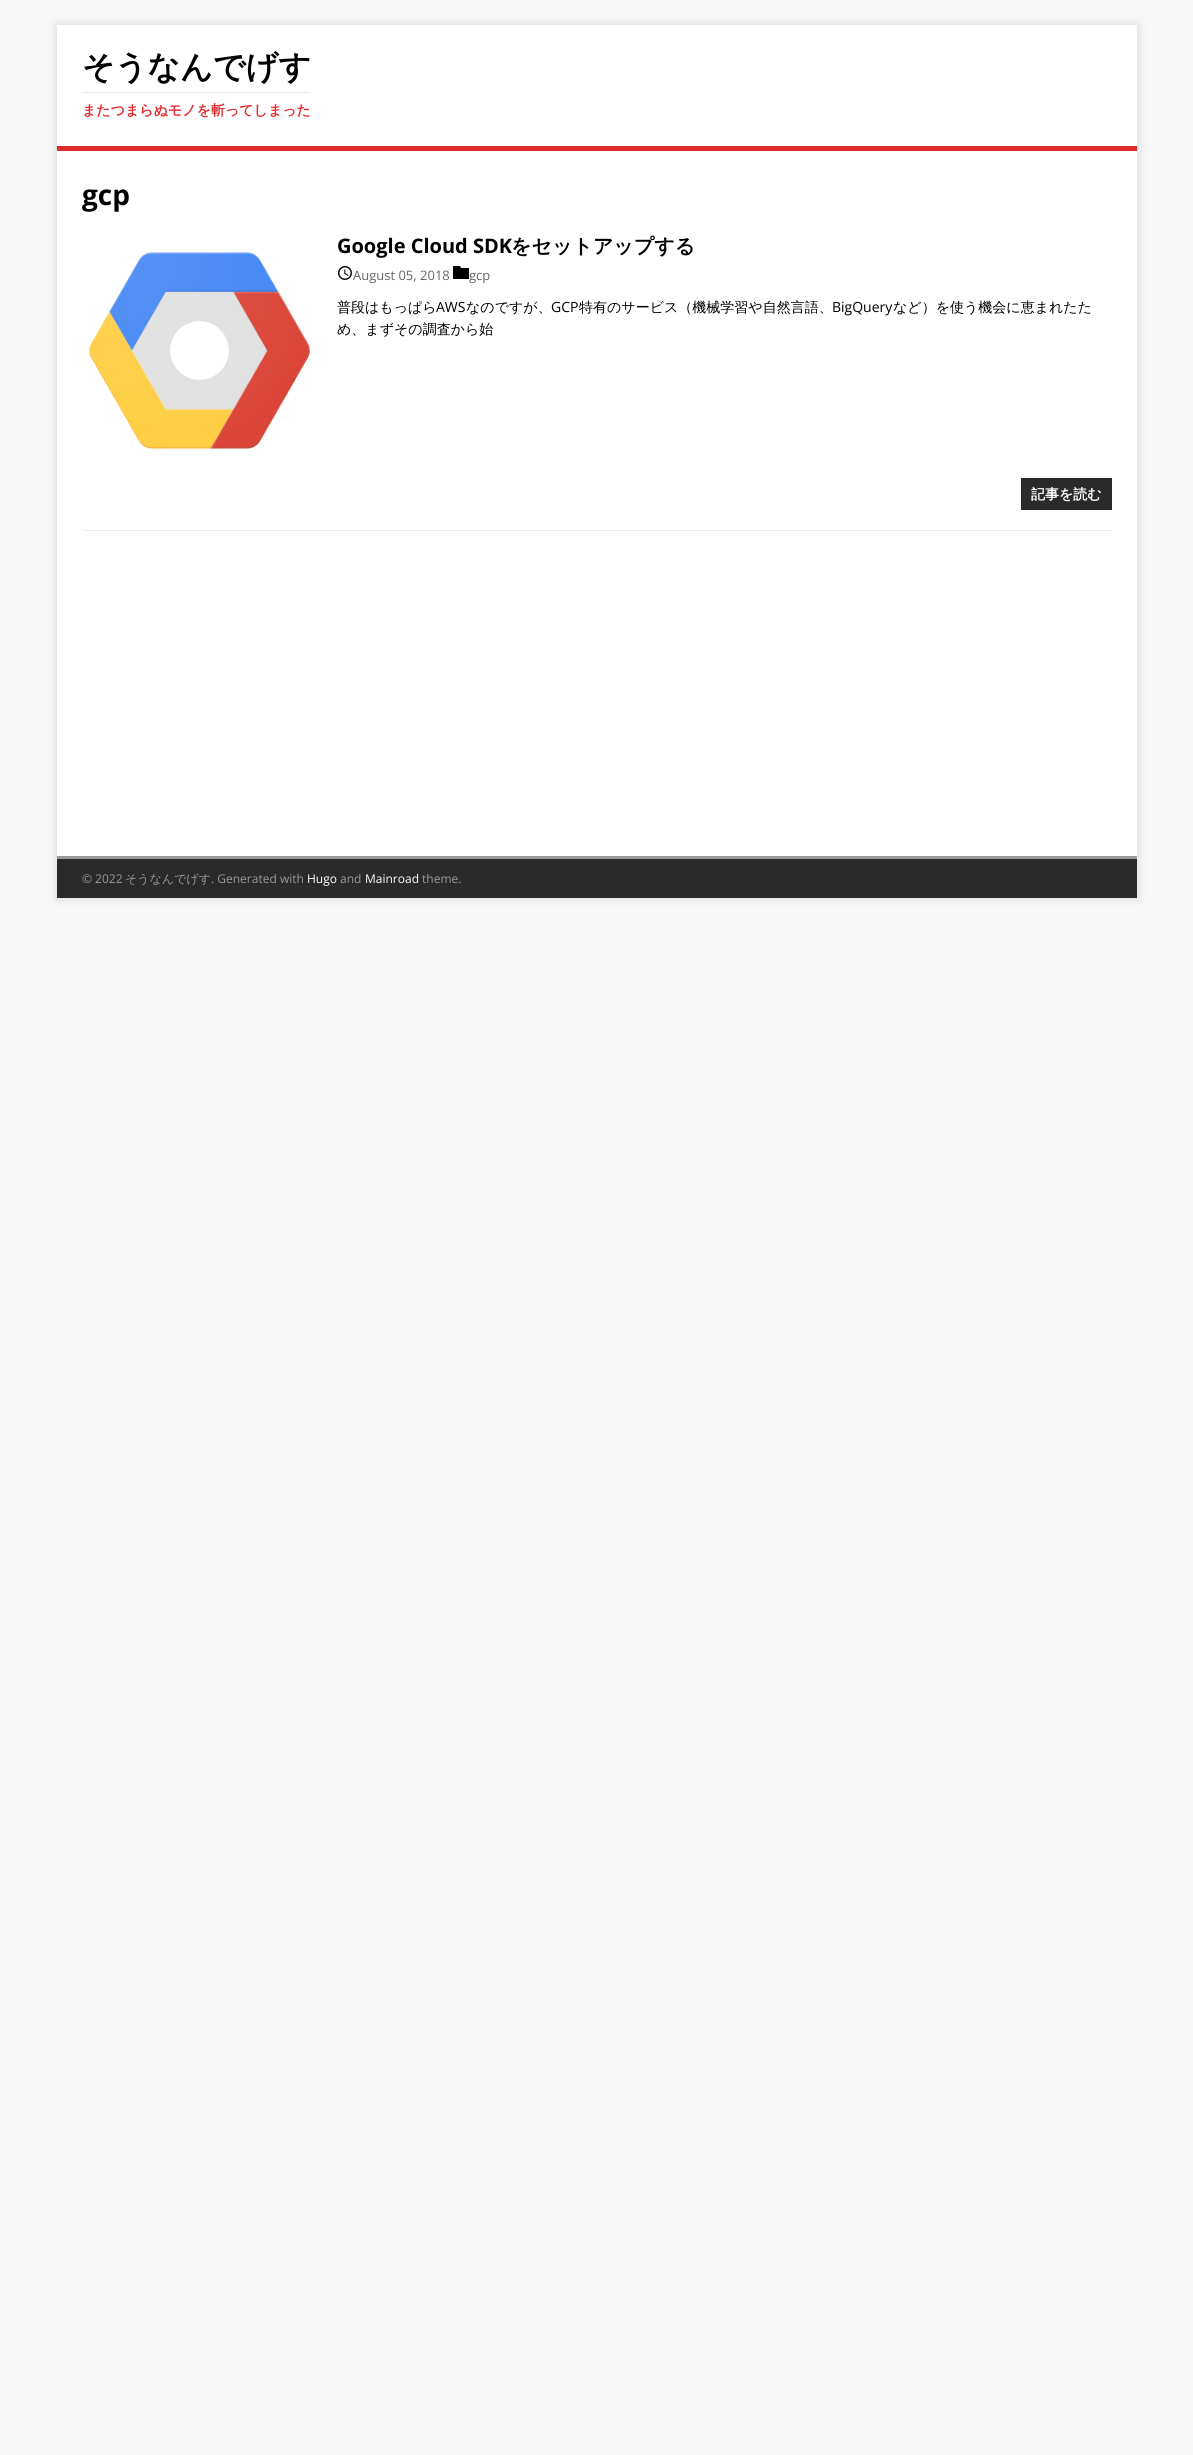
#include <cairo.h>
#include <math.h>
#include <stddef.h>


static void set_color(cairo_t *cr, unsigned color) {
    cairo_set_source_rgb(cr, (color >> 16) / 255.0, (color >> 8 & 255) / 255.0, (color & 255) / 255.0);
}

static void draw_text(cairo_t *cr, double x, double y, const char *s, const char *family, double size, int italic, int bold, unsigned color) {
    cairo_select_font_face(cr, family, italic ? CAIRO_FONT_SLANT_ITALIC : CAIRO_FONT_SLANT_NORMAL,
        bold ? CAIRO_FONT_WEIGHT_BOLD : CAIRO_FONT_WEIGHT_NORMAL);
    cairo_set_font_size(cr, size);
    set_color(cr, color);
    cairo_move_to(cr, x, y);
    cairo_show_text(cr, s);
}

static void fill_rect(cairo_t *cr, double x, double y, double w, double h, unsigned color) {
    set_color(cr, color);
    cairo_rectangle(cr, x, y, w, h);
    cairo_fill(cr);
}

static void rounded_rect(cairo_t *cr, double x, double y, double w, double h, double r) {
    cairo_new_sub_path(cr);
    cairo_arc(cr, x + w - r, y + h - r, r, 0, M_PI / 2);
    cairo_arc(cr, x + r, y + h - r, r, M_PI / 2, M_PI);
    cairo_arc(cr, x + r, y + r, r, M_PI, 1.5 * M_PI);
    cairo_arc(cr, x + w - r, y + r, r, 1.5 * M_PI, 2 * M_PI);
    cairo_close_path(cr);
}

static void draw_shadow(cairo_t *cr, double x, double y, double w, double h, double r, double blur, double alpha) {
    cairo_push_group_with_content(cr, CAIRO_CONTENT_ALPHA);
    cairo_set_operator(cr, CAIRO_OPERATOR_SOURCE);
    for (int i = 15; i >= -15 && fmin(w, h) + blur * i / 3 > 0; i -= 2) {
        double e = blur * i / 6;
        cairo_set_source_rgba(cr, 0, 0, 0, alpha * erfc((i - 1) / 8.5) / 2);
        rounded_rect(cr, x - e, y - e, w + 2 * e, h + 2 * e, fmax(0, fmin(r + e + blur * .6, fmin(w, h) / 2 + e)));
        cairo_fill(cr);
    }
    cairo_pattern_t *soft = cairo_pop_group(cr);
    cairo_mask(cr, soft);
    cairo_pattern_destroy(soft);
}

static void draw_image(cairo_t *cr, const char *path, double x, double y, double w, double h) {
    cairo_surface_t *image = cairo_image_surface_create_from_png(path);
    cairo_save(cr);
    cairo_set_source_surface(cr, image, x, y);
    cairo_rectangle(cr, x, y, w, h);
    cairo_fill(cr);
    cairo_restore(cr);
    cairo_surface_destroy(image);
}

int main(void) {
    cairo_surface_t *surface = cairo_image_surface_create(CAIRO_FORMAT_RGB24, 1193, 2455);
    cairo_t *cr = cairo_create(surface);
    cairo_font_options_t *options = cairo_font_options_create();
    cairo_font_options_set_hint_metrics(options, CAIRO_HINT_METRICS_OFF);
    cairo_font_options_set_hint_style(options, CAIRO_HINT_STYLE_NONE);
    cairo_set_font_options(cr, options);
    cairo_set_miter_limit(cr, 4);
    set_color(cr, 0xF7F7F7);
    cairo_paint(cr);
    set_color(cr, 0x323232);
    draw_shadow(cr, 57, 25, 1080, 873, 0, 5, 0.17);
    fill_rect(cr, 57, 25, 1080, 121, 0xFFFFFF);
    draw_text(cr, 82, 78, "そうなんでげす", "WenQuanYi Zen Hei", 32, 0, 1, 0x000000);
    fill_rect(cr, 82, 92, 228, 1, 0xEBEBEB);
    draw_text(cr, 82, 115, "またつまらぬモノを斬ってしまった", "WenQuanYi Zen Hei", 14, 0, 1, 0xE22D30);
    fill_rect(cr, 57, 146, 1080, 5, 0xE22D30);
    fill_rect(cr, 57, 151, 1080, 705, 0xFFFFFF);
    draw_text(cr, 82, 205, "gcp", "Open Sans", 28, 0, 1, 0x000000);
    fill_rect(cr, 82, 530, 1030, 1, 0xEBEBEB);
    draw_image(cr, "assets/img1.png", 89, 252, 221, 197);
    draw_text(cr, 337, 253, "Google Cloud SDK", "Open Sans", 20, 0, 1, 0x000000);
    draw_text(cr, 511, 253, "をセットアップする", "WenQuanYi Zen Hei", 20, 0, 1, 0x000000);
    draw_image(cr, "assets/img2.png", 338, 266, 14, 14);
    draw_text(cr, 353, 280, "August 05, 2018", "Open Sans", 13, 0, 0, 0x666666);
    draw_text(cr, 469, 280, "gcp", "Open Sans", 13, 0, 0, 0x666666);
    draw_image(cr, "assets/img3.png", 453, 266, 16, 13);
    draw_text(cr, 337, 312, "普段はもっぱら", "WenQuanYi Zen Hei Medium", 14, 0, 0, 0x000000);
    draw_text(cr, 436, 312, "AWS", "Open Sans", 14, 0, 0, 0x000000);
    draw_text(cr, 466, 312, "なのですが、", "WenQuanYi Zen Hei Medium", 14, 0, 0, 0x000000);
    draw_text(cr, 551, 312, "GCP", "Open Sans", 14, 0, 0, 0x000000);
    draw_text(cr, 579, 312, "特有のサービス（機械学習や自然言語、", "WenQuanYi Zen Hei Medium", 14, 0, 0, 0x000000);
    draw_text(cr, 832, 312, "BigQuery", "Open Sans", 14, 0, 0, 0x000000);
    draw_text(cr, 893, 312, "など）を使う機会に恵まれたた", "WenQuanYi Zen Hei Medium", 14, 0, 0, 0x000000);
    draw_text(cr, 337, 334, "め、まずその調査から始", "WenQuanYi Zen Hei Medium", 14, 0, 0, 0x000000);
    fill_rect(cr, 1021, 478, 91, 32, 0x2A2A2A);
    draw_text(cr, 1031, 499, "記事を読む", "WenQuanYi Zen Hei", 14, 0, 1, 0xFFFFFF);
    fill_rect(cr, 57, 859, 1080, 39, 0x2A2A2A);
    fill_rect(cr, 57, 856, 1080, 3, 0x999999);
    draw_text(cr, 82, 883, "© 2022", "Open Sans", 12, 0, 0, 0x999999);
    draw_text(cr, 125, 883, "そうなんでげす", "WenQuanYi Zen Hei Medium", 12, 0, 0, 0x999999);
    draw_text(cr, 211, 883, ". Generated with", "Open Sans", 12, 0, 0, 0x999999);
    draw_text(cr, 307, 883, "Hugo", "Open Sans", 12, 0, 0, 0xFFFFFF);
    draw_text(cr, 340, 883, "and", "Open Sans", 12, 0, 0, 0x999999);
    draw_text(cr, 365, 883, "Mainroad", "Open Sans", 12, 0, 0, 0xFFFFFF);
    draw_text(cr, 422, 883, "theme.", "Open Sans", 12, 0, 0, 0x999999);
    cairo_surface_write_to_png(surface, "output.png");
    cairo_font_options_destroy(options);
    cairo_destroy(cr);
    cairo_surface_destroy(surface);
    return 0;
}
